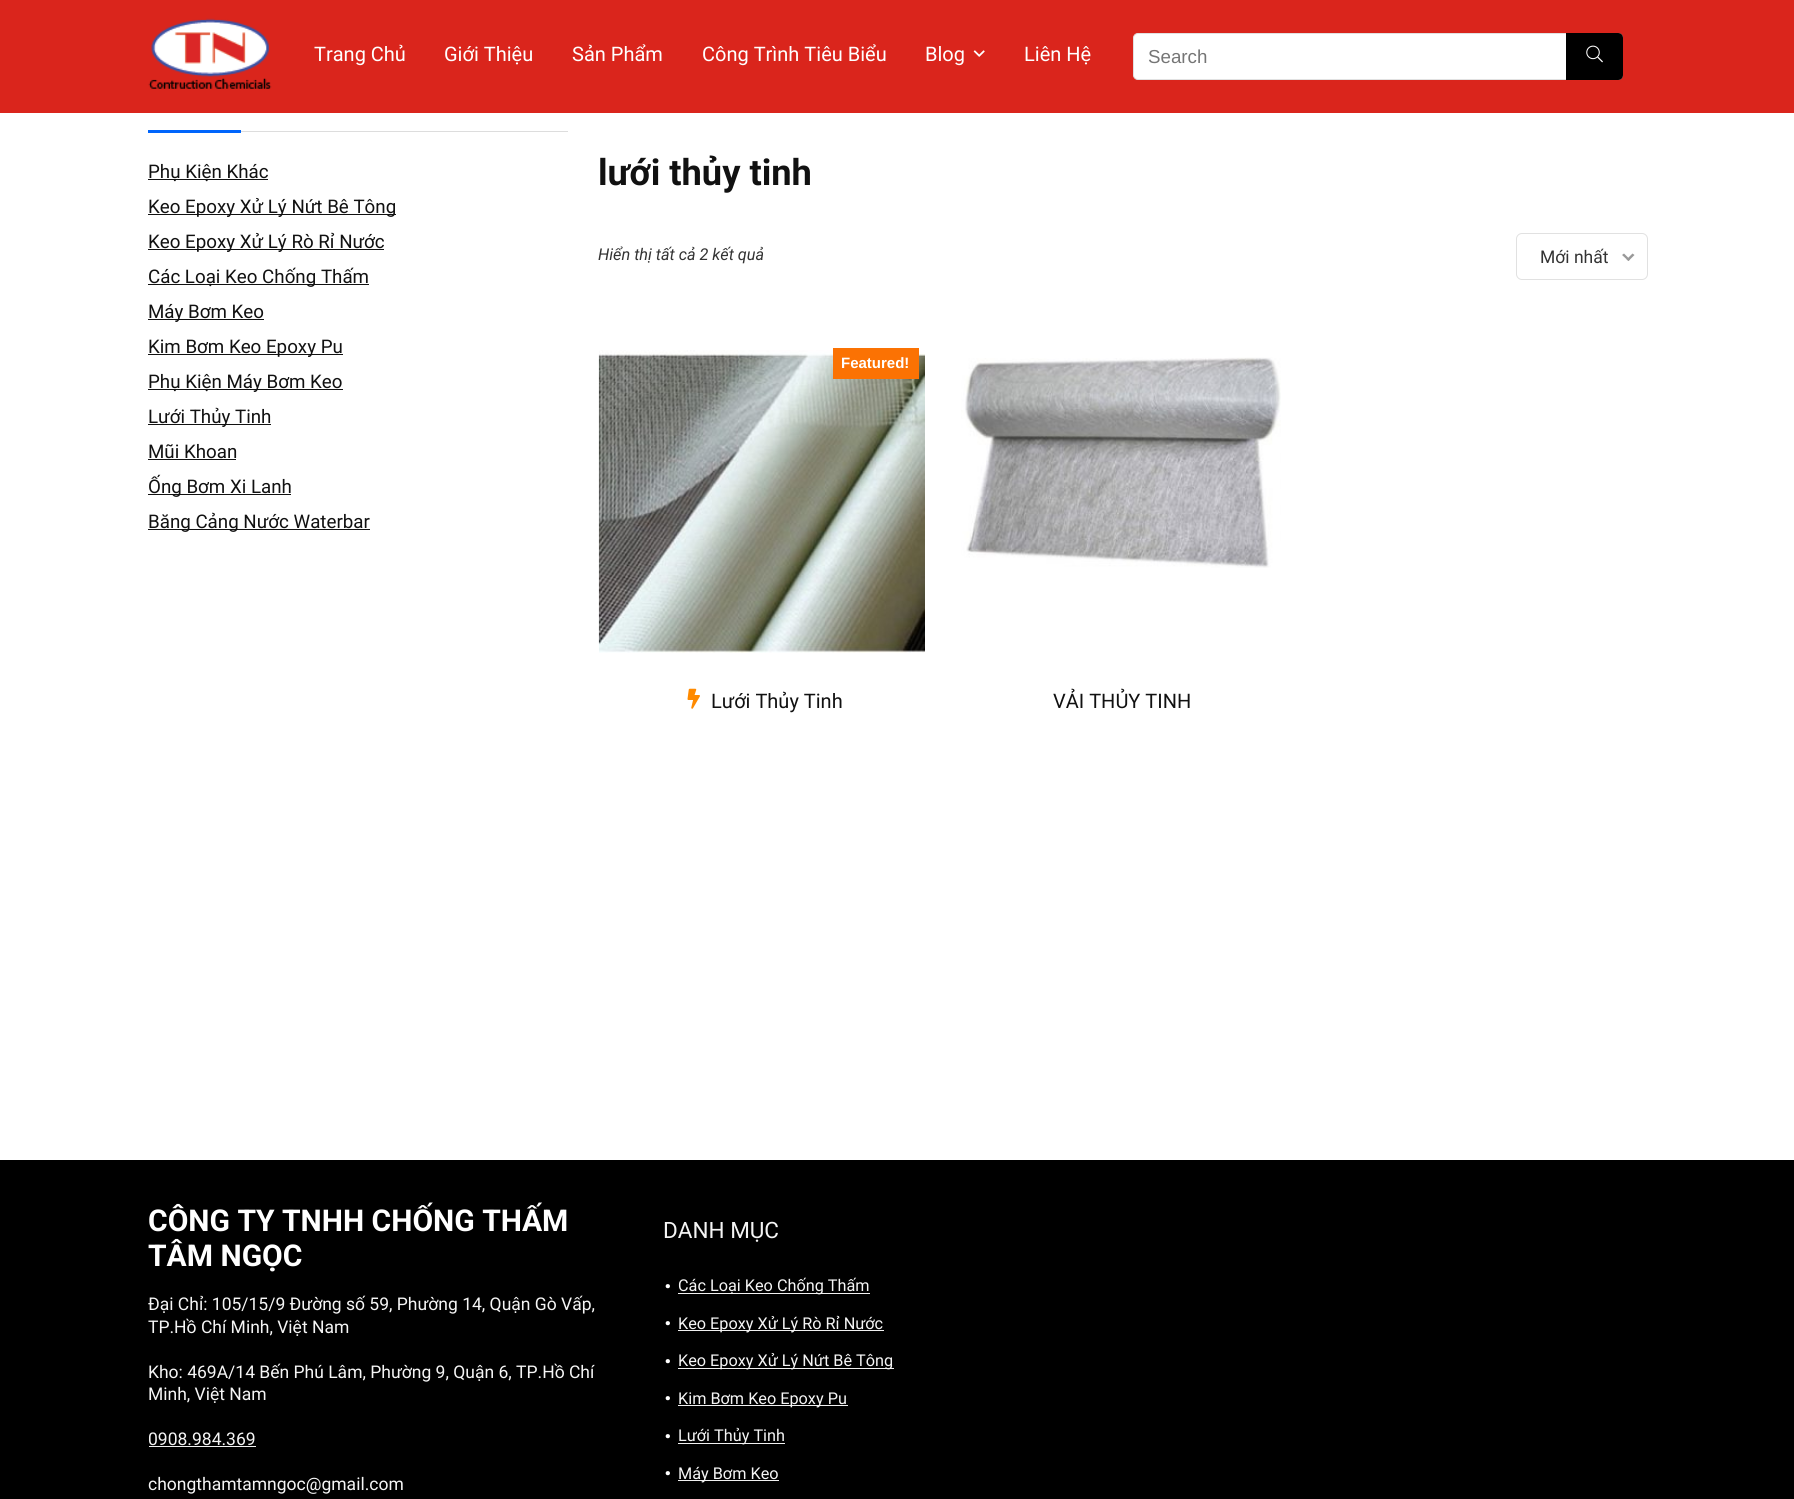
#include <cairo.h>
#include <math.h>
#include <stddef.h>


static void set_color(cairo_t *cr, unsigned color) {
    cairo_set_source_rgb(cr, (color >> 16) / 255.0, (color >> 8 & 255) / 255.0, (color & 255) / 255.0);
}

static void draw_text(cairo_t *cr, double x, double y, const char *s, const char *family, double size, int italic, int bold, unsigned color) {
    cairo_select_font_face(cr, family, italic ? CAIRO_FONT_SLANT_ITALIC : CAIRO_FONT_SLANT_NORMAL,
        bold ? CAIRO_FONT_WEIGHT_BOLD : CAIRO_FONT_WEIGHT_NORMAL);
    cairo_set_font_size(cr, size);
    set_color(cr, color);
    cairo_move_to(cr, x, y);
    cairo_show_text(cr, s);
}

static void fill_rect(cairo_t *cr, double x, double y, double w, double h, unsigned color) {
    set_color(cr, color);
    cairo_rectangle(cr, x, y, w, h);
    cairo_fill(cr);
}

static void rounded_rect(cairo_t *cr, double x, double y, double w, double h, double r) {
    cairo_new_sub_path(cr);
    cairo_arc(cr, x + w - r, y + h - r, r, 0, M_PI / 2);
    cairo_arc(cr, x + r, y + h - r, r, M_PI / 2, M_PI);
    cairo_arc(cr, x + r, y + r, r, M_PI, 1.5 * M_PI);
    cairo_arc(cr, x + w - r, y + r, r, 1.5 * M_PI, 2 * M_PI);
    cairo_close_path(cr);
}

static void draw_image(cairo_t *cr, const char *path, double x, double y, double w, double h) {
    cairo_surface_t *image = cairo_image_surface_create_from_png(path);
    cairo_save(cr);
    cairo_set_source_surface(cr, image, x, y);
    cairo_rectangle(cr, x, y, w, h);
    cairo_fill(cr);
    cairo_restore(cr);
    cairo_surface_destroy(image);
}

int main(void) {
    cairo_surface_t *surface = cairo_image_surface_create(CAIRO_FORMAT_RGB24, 1794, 1499);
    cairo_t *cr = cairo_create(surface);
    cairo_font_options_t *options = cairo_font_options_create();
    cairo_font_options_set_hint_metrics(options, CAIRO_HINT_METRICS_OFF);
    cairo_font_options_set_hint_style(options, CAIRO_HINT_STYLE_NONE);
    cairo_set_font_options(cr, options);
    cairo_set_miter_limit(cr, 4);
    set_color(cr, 0xFFFFFF);
    cairo_paint(cr);
    fill_rect(cr, 0, 0, 1794, 113, 0xDA251C);
    draw_image(cr, "assets/img1.png", 148, 18, 124, 71);
    draw_text(cr, 314, 61, "Trang Chủ", "Roboto", 20, 0, 0, 0xFFFFFF);
    draw_text(cr, 444, 61, "Giới Thiệu", "Roboto", 20, 0, 0, 0xFFFFFF);
    draw_text(cr, 572, 61, "Sản Phẩm", "Roboto", 20, 0, 0, 0xFFFFFF);
    draw_text(cr, 702, 61, "Công Trình Tiêu Biểu", "Roboto", 20, 0, 0, 0xFFFFFF);
    draw_text(cr, 925, 61, "Blog", "Roboto", 20, 0, 0, 0xFFFFFF);
    draw_image(cr, "assets/img2.png", 973, 50, 12, 7);
    draw_text(cr, 1024, 61, "Liên Hệ", "Roboto", 20, 0, 0, 0xFFFFFF);
    rounded_rect(cr, 1133.5, 33.5, 489, 46, 4.5);
    cairo_fill_preserve(cr);
    set_color(cr, 0xE1E1E1);
    cairo_set_line_width(cr, 1);
    cairo_stroke(cr);
    draw_text(cr, 1148, 63, "Search", "Liberation Sans", 18.75, 0, 0, 0x757575);
    set_color(cr, 0x000000);
    cairo_new_path(cr);
    cairo_move_to(cr, 1566, 33);
    cairo_line_to(cr, 1618, 33);
    cairo_curve_to(cr, 1621, 33, 1623, 35, 1623, 38);
    cairo_line_to(cr, 1623, 75);
    cairo_curve_to(cr, 1623, 78, 1621, 80, 1618, 80);
    cairo_line_to(cr, 1566, 80);
    cairo_close_path(cr);
    cairo_fill(cr);
    draw_image(cr, "assets/img3.png", 1586, 45, 17, 18);
    fill_rect(cr, 241, 131, 327, 1, 0xDDDDDD);
    fill_rect(cr, 148, 130, 93, 3, 0x0065FC);
    fill_rect(cr, 148, 179, 120, 1, 0x111111);
    draw_text(cr, 148, 178, "Phụ Kiện Khác", "Roboto", 18.75, 0, 0, 0x111111);
    fill_rect(cr, 148, 214, 248, 1, 0x111111);
    draw_text(cr, 148, 213, "Keo Epoxy Xử Lý Nứt Bê Tông", "Roboto", 18.75, 0, 0, 0x111111);
    fill_rect(cr, 148, 249, 236, 1, 0x111111);
    draw_text(cr, 148, 248, "Keo Epoxy Xử Lý Rò Rỉ Nước", "Roboto", 18.75, 0, 0, 0x111111);
    fill_rect(cr, 148, 284, 221, 1, 0x111111);
    draw_text(cr, 148, 283, "Các Loại Keo Chống Thấm", "Roboto", 18.75, 0, 0, 0x111111);
    fill_rect(cr, 148, 319, 116, 1, 0x111111);
    draw_text(cr, 148, 318, "Máy Bơm Keo", "Roboto", 18.75, 0, 0, 0x111111);
    fill_rect(cr, 148, 354, 195, 1, 0x111111);
    draw_text(cr, 148, 353, "Kim Bơm Keo Epoxy Pu", "Roboto", 18.75, 0, 0, 0x111111);
    fill_rect(cr, 148, 389, 195, 1, 0x111111);
    draw_text(cr, 148, 388, "Phụ Kiện Máy Bơm Keo", "Roboto", 18.75, 0, 0, 0x111111);
    fill_rect(cr, 148, 424, 123, 1, 0x111111);
    draw_text(cr, 148, 423, "Lưới Thủy Tinh", "Roboto", 18.75, 0, 0, 0x111111);
    draw_text(cr, 148, 458, "Mũi Khoan", "Roboto", 18.75, 0, 0, 0x111111);
    fill_rect(cr, 148, 459, 88, 1, 0x111111);
    fill_rect(cr, 148, 494, 143, 1, 0x111111);
    draw_text(cr, 148, 493, "Ống Bơm Xi Lanh", "Roboto", 18.75, 0, 0, 0x111111);
    fill_rect(cr, 148, 529, 222, 1, 0x111111);
    draw_text(cr, 148, 528, "Băng Cảng Nước Waterbar", "Roboto", 18.75, 0, 0, 0x111111);
    draw_text(cr, 598, 185, "lưới thủy tinh", "Roboto", 36.25, 0, 1, 0x111111);
    draw_text(cr, 598, 260, "Hiển thị tất cả 2 kết quả", "Roboto", 16.25, 1, 0, 0x333333);
    rounded_rect(cr, 1516.5, 233.5, 131, 46, 5.5);
    set_color(cr, 0xE1E1E1);
    cairo_stroke(cr);
    draw_text(cr, 1540, 263, "Mới nhất", "Roboto", 17.5, 0, 0, 0x333333);
    set_color(cr, 0x999999);
    cairo_new_path(cr);
    cairo_move_to(cr, 1632.5, 253.5);
    cairo_line_to(cr, 1634.5, 255);
    cairo_line_to(cr, 1628.5, 261);
    cairo_line_to(cr, 1626.5, 259.5);
    cairo_close_path(cr);
    cairo_fill(cr);
    cairo_new_path(cr);
    cairo_move_to(cr, 1624, 253.5);
    cairo_line_to(cr, 1630, 259.5);
    cairo_line_to(cr, 1628.5, 261);
    cairo_line_to(cr, 1622, 255);
    cairo_close_path(cr);
    cairo_fill(cr);
    draw_image(cr, "assets/img4.png", 598, 350, 327, 303);
    fill_rect(cr, 833, 348, 86, 31, 0xFB7203);
    draw_text(cr, 841, 368, "Featured!", "Liberation Sans", 15, 0, 1, 0xFFFFFF);
    draw_image(cr, "assets/img5.png", 687, 688, 13, 21);
    draw_text(cr, 711, 708, "Lưới Thủy Tinh", "Roboto", 20, 0, 0, 0x111111);
    draw_image(cr, "assets/img6.png", 961, 357, 320, 211);
    draw_text(cr, 1053, 708, "VẢI THỦY TINH", "Roboto", 20, 0, 0, 0x111111);
    fill_rect(cr, 0, 1160, 1794, 339, 0x000000);
    draw_text(cr, 148, 1231, "CÔNG TY TNHH CHỐNG THẤM", "Roboto", 30, 0, 1, 0xFFFFFF);
    draw_text(cr, 148, 1266, "TÂM NGỌC", "Roboto", 30, 0, 1, 0xFFFFFF);
    draw_text(cr, 148, 1310, "Đại Chỉ: 105/15/9 Đường số 59, Phường 14, Quận Gò Vấp,", "Roboto", 17.5, 0, 0, 0xF5F5F5);
    draw_text(cr, 148, 1333, "TP.Hồ Chí Minh, Việt Nam", "Roboto", 17.5, 0, 0, 0xF5F5F5);
    draw_text(cr, 148, 1378, "Kho: 469A/14 Bến Phú Lâm, Phường 9, Quận 6, TP.Hồ Chí", "Roboto", 17.5, 0, 0, 0xF5F5F5);
    draw_text(cr, 148, 1400, "Minh, Việt Nam", "Roboto", 17.5, 0, 0, 0xF5F5F5);
    draw_text(cr, 148, 1445, "0908.984.369", "Roboto", 17.5, 0, 0, 0xF5F5F5);
    fill_rect(cr, 149, 1446, 107, 1, 0xF1F1F1);
    draw_text(cr, 148, 1490, "chongthamtamngoc@gmail.com", "Roboto", 17.5, 0, 0, 0xF5F5F5);
    draw_text(cr, 663, 1238, "DANH MỤC", "Roboto", 22.5, 0, 0, 0xF5F5F5);
    draw_text(cr, 663, 1288, ".", "Roboto", 38, 0, 0, 0xFFFFFF);
    fill_rect(cr, 678, 1293, 192, 1, 0xF1F1F1);
    draw_text(cr, 678, 1291, "Các Loại Keo Chống Thấm", "Roboto", 16.25, 0, 0, 0xF5F5F5);
    draw_text(cr, 663, 1325, ".", "Roboto", 38, 0, 0, 0xFFFFFF);
    fill_rect(cr, 678, 1330, 206, 1, 0xF1F1F1);
    draw_text(cr, 678, 1329, "Keo Epoxy Xử Lý Rò Rỉ Nước", "Roboto", 16.25, 0, 0, 0xF5F5F5);
    draw_text(cr, 663, 1363, ".", "Roboto", 38, 0, 0, 0xFFFFFF);
    fill_rect(cr, 678, 1368, 216, 1, 0xF1F1F1);
    draw_text(cr, 678, 1366, "Keo Epoxy Xử Lý Nứt Bê Tông", "Roboto", 16.25, 0, 0, 0xF5F5F5);
    draw_text(cr, 663, 1400, ".", "Roboto", 38, 0, 0, 0xFFFFFF);
    fill_rect(cr, 678, 1405, 170, 1, 0xF1F1F1);
    draw_text(cr, 678, 1404, "Kim Bơm Keo Epoxy Pu", "Roboto", 16.25, 0, 0, 0xF5F5F5);
    draw_text(cr, 663, 1438, ".", "Roboto", 38, 0, 0, 0xFFFFFF);
    fill_rect(cr, 678, 1443, 107, 1, 0xF1F1F1);
    draw_text(cr, 678, 1441, "Lưới Thủy Tinh", "Roboto", 16.25, 0, 0, 0xF5F5F5);
    draw_text(cr, 663, 1475, ".", "Roboto", 38, 0, 0, 0xFFFFFF);
    fill_rect(cr, 678, 1480, 101, 1, 0xF1F1F1);
    draw_text(cr, 678, 1479, "Máy Bơm Keo", "Roboto", 16.25, 0, 0, 0xF5F5F5);
    cairo_surface_write_to_png(surface, "output.png");
    cairo_font_options_destroy(options);
    cairo_destroy(cr);
    cairo_surface_destroy(surface);
    return 0;
}
